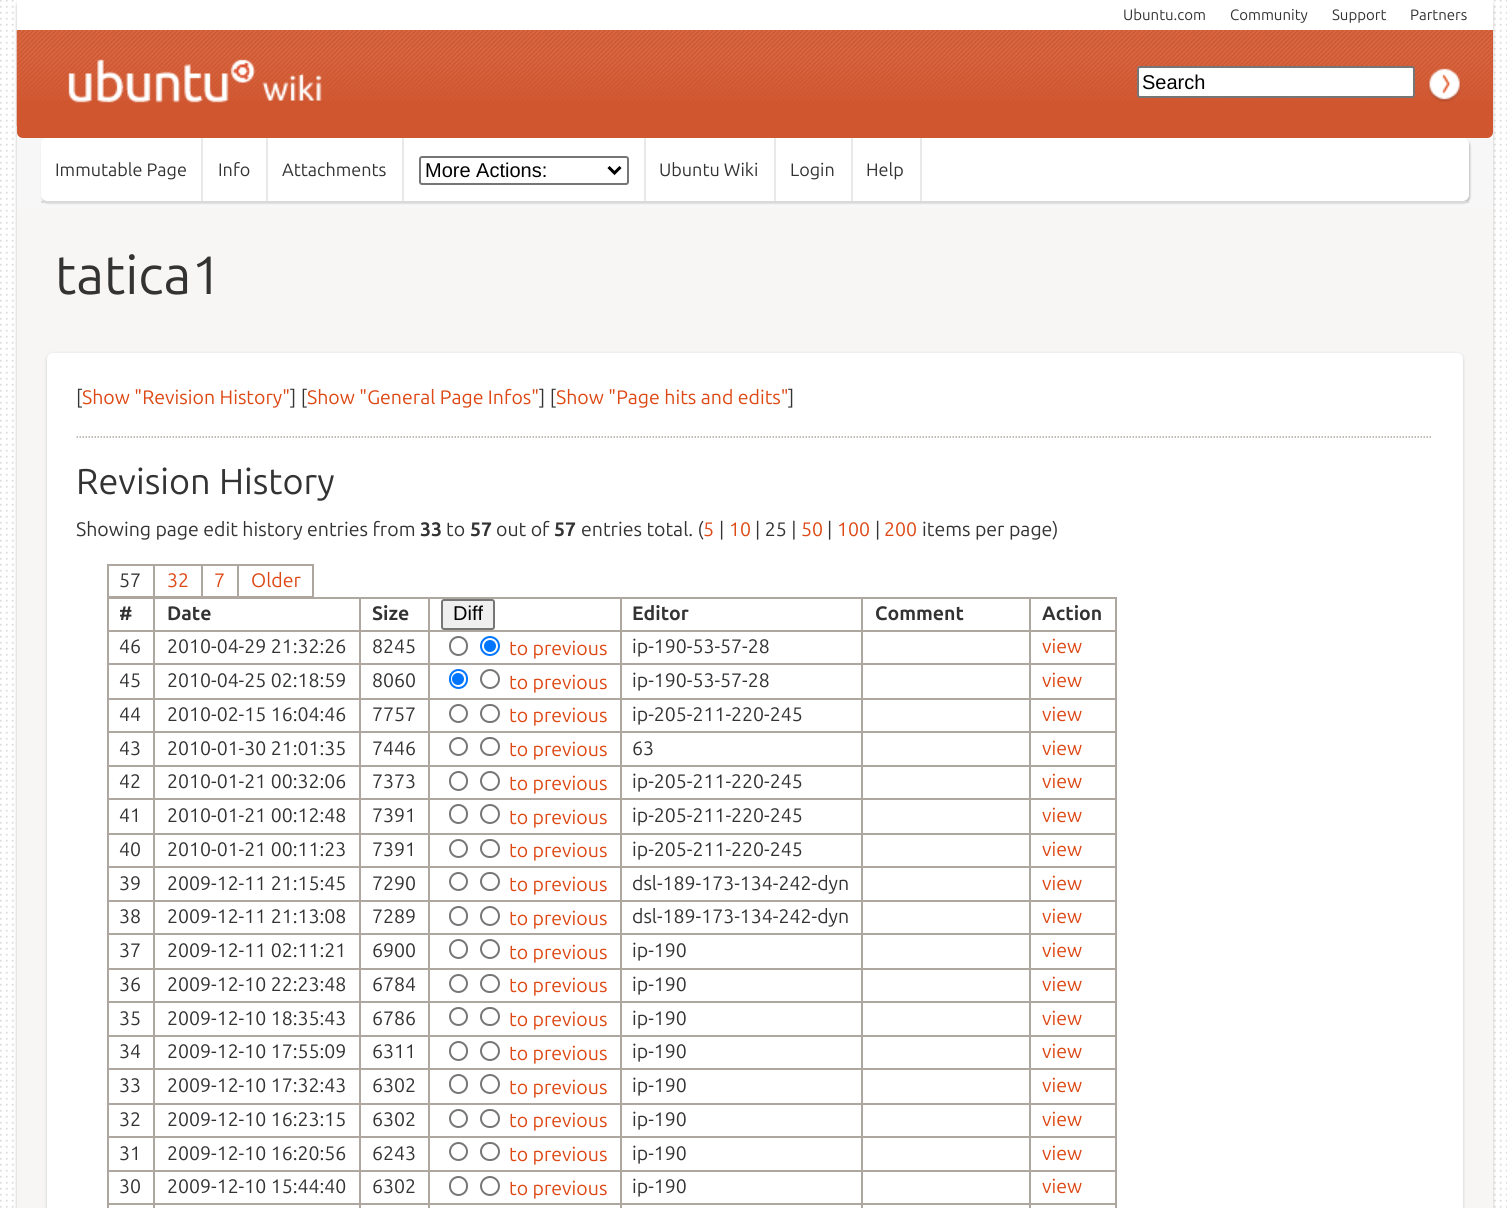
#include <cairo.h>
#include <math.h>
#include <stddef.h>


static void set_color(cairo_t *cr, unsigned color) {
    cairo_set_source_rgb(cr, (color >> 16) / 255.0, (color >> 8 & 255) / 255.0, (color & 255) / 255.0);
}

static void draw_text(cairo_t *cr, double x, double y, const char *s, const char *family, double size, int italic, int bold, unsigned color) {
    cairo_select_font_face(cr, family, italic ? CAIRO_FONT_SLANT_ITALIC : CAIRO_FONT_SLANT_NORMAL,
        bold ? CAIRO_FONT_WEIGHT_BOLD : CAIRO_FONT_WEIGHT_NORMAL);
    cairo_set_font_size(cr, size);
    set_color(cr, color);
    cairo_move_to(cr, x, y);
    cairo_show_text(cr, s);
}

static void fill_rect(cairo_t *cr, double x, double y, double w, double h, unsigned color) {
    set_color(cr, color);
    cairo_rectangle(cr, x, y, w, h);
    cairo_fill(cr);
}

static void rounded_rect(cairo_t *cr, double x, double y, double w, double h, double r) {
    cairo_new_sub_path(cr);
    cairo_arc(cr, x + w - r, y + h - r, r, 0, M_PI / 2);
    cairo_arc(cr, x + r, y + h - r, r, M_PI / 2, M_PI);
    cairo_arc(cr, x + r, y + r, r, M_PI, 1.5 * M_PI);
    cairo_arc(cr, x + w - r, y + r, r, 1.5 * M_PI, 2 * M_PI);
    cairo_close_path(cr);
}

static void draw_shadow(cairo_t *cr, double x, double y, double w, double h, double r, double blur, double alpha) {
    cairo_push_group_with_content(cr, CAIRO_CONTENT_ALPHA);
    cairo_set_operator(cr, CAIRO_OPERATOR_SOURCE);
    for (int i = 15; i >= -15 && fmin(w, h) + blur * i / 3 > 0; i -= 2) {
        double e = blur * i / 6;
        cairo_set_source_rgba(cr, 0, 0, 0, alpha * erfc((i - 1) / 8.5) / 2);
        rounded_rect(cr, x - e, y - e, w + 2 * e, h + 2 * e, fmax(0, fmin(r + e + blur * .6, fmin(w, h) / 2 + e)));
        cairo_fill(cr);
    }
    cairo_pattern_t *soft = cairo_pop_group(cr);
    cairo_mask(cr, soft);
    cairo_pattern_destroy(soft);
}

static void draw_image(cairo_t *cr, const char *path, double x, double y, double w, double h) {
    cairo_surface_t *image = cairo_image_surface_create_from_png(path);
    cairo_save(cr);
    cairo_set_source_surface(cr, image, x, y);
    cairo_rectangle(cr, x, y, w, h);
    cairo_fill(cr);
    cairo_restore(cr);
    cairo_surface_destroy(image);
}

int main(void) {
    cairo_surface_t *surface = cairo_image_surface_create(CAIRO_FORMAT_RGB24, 1507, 1208);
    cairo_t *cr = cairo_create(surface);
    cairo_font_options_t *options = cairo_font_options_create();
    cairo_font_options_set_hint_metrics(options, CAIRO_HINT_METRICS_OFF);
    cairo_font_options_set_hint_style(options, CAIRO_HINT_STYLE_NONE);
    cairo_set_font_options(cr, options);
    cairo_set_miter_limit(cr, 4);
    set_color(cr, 0xFFFFFF);
    cairo_paint(cr);
    draw_image(cr, "assets/img1.png", 0, 0, 1507, 1208);
    set_color(cr, 0xBBBBBB);
    draw_shadow(cr, 17, 0, 1476, 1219, 6, 1.5, 1);
    fill_rect(cr, 17, 138, 1476, 71, 0xF7F7F7);
    fill_rect(cr, 17, 0, 1476, 138, 0xFFFFFF);
    draw_text(cr, 1123, 20, "Ubuntu.com", "Ubuntu", 15, 0, 0, 0x333333);
    draw_text(cr, 1230, 20, "Community", "Ubuntu", 15, 0, 0, 0x333333);
    draw_text(cr, 1332, 20, "Support", "Ubuntu", 15, 0, 0, 0x333333);
    draw_text(cr, 1410, 20, "Partners", "Ubuntu", 15, 0, 0, 0x333333);
    set_color(cr, 0xD05630);
    cairo_new_path(cr);
    cairo_move_to(cr, 17, 30);
    cairo_line_to(cr, 1493, 30);
    cairo_line_to(cr, 1493, 132);
    cairo_curve_to(cr, 1493, 135.5, 1490.5, 138, 1487, 138);
    cairo_line_to(cr, 23, 138);
    cairo_curve_to(cr, 19.5, 138, 17, 135.5, 17, 132);
    cairo_close_path(cr);
    cairo_fill(cr);
    draw_image(cr, "assets/img2.png", 16, 30, 1477, 96);
    draw_image(cr, "assets/img3.png", 68, 59, 254, 44);
    set_color(cr, 0xFFFFFF);
    rounded_rect(cr, 1138, 67, 276, 30, 2);
    cairo_fill_preserve(cr);
    set_color(cr, 0x767676);
    cairo_stroke(cr);
    draw_text(cr, 1142, 89, "Search", "Liberation Sans", 20, 0, 0, 0x000000);
    draw_image(cr, "assets/img4.png", 1428, 68, 33, 34);
    set_color(cr, 0xBBBBBB);
    draw_shadow(cr, 42, 140, 1428, 63, 6, 1, 1);
    set_color(cr, 0xFFFFFF);
    rounded_rect(cr, 41, 138, 1428, 63, 6);
    cairo_fill(cr);
    fill_rect(cr, 201, 138, 2, 63, 0xE9E9E9);
    draw_text(cr, 55, 176, "Immutable Page", "Ubuntu", 18, 0, 0, 0x333333);
    fill_rect(cr, 266, 138, 2, 63, 0xE9E9E9);
    draw_text(cr, 218, 176, "Info", "Ubuntu", 18, 0, 0, 0x333333);
    fill_rect(cr, 402, 138, 2, 63, 0xE9E9E9);
    draw_text(cr, 282, 176, "Attachments", "Ubuntu", 18, 0, 0, 0x333333);
    fill_rect(cr, 644, 138, 2, 63, 0xE9E9E9);
    rounded_rect(cr, 420, 157, 208, 27, 2);
    set_color(cr, 0x767676);
    cairo_stroke(cr);
    cairo_new_path(cr);
    cairo_move_to(cr, 608.5, 167);
    cairo_line_to(cr, 614.5, 173);
    cairo_line_to(cr, 620.5, 167);
    set_color(cr, 0x000000);
    cairo_set_line_width(cr, 3);
    cairo_stroke(cr);
    draw_text(cr, 425, 177, "More Actions:", "Liberation Sans", 20, 0, 0, 0x000000);
    fill_rect(cr, 774, 138, 2, 63, 0xE9E9E9);
    draw_text(cr, 659, 176, "Ubuntu Wiki", "Ubuntu", 18, 0, 0, 0x333333);
    fill_rect(cr, 851, 138, 2, 63, 0xE9E9E9);
    draw_text(cr, 790, 176, "Login", "Ubuntu", 18, 0, 0, 0x333333);
    fill_rect(cr, 920, 138, 2, 63, 0xE9E9E9);
    draw_text(cr, 866, 176, "Help", "Ubuntu", 18, 0, 0, 0x333333);
    fill_rect(cr, 41, 201, 1428, 2, 0xD9D9D9);
    fill_rect(cr, 17, 209, 1476, 999, 0xF7F6F5);
    draw_text(cr, 55, 294, "tatica1", "Ubuntu", 54, 0, 0, 0x333333);
    set_color(cr, 0xCCCCCC);
    draw_shadow(cr, 47, 354, 1416, 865, 6, 1.5, 1);
    set_color(cr, 0xFFFFFF);
    rounded_rect(cr, 47, 353, 1416, 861, 6);
    cairo_fill(cr);
    draw_text(cr, 76, 404, "[", "Ubuntu", 19.5, 0, 0, 0x333333);
    draw_text(cr, 82, 404, "Show \"Revision History\"", "Ubuntu", 19.5, 0, 0, 0xDD4814);
    draw_text(cr, 290, 404, "] [", "Ubuntu", 19.5, 0, 0, 0x333333);
    draw_text(cr, 307, 404, "Show \"General Page Infos\"", "Ubuntu", 19.5, 0, 0, 0xDD4814);
    draw_text(cr, 539, 404, "] [", "Ubuntu", 19.5, 0, 0, 0x333333);
    draw_text(cr, 556, 404, "Show \"Page hits and edits\"", "Ubuntu", 19.5, 0, 0, 0xDD4814);
    draw_text(cr, 788, 404, "]", "Ubuntu", 19.5, 0, 0, 0x333333);
    cairo_new_path(cr);
    cairo_move_to(cr, 76.5, 437);
    cairo_line_to(cr, 1432.5, 437);
    set_color(cr, 0xAEA79F);
    cairo_set_line_width(cr, 1.5);
    cairo_set_dash(cr, (double[]){1.5, 1.5}, 2, 0);
    cairo_stroke(cr);
    draw_text(cr, 76, 494, "Revision History", "Ubuntu", 36, 0, 0, 0x333333);
    draw_text(cr, 76, 536, "Showing page edit history entries from", "Ubuntu", 19.5, 0, 0, 0x333333);
    draw_text(cr, 420, 536, "33", "Ubuntu", 19.5, 0, 1, 0x333333);
    draw_text(cr, 446, 536, "to", "Ubuntu", 19.5, 0, 0, 0x333333);
    draw_text(cr, 470, 536, "57", "Ubuntu", 19.5, 0, 1, 0x333333);
    draw_text(cr, 496, 536, "out of", "Ubuntu", 19.5, 0, 0, 0x333333);
    draw_text(cr, 554, 536, "57", "Ubuntu", 19.5, 0, 1, 0x333333);
    draw_text(cr, 581, 536, "entries total. (", "Ubuntu", 19.5, 0, 0, 0x333333);
    draw_text(cr, 703, 536, "5", "Ubuntu", 19.5, 0, 0, 0xDD4814);
    draw_text(cr, 719, 536, "|", "Ubuntu", 19.5, 0, 0, 0x333333);
    draw_text(cr, 729, 536, "10", "Ubuntu", 19.5, 0, 0, 0xDD4814);
    draw_text(cr, 755, 536, "| 25 |", "Ubuntu", 19.5, 0, 0, 0x333333);
    draw_text(cr, 801, 536, "50", "Ubuntu", 19.5, 0, 0, 0xDD4814);
    draw_text(cr, 827, 536, "|", "Ubuntu", 19.5, 0, 0, 0x333333);
    draw_text(cr, 837, 536, "100", "Ubuntu", 19.5, 0, 0, 0xDD4814);
    draw_text(cr, 875, 536, "|", "Ubuntu", 19.5, 0, 0, 0x333333);
    draw_text(cr, 884, 536, "200", "Ubuntu", 19.5, 0, 0, 0xDD4814);
    draw_text(cr, 922, 536, "items per page)", "Ubuntu", 19.5, 0, 0, 0x333333);
    fill_rect(cr, 237, 564, 77, 2, 0xAEA79F);
    fill_rect(cr, 312, 564, 2, 33, 0xAEA79F);
    fill_rect(cr, 237, 596, 77, 1, 0xAEA79F);
    fill_rect(cr, 237, 564, 2, 33, 0xAEA79F);
    fill_rect(cr, 201, 564, 38, 2, 0xAEA79F);
    fill_rect(cr, 201, 596, 38, 1, 0xAEA79F);
    fill_rect(cr, 201, 564, 2, 33, 0xAEA79F);
    fill_rect(cr, 153, 564, 50, 2, 0xAEA79F);
    fill_rect(cr, 153, 596, 50, 1, 0xAEA79F);
    fill_rect(cr, 153, 564, 2, 33, 0xAEA79F);
    fill_rect(cr, 107, 564, 48, 2, 0xAEA79F);
    fill_rect(cr, 107, 596, 48, 1, 0xAEA79F);
    fill_rect(cr, 107, 564, 2, 33, 0xAEA79F);
    draw_text(cr, 119, 587, "57", "Ubuntu", 19.5, 0, 0, 0x333333);
    draw_text(cr, 167, 587, "32", "Ubuntu", 19.5, 0, 0, 0xDD4814);
    draw_text(cr, 214, 587, "7", "Ubuntu", 19.5, 0, 0, 0xDD4814);
    draw_text(cr, 251, 587, "Older", "Ubuntu", 19.5, 0, 0, 0xDD4814);
    fill_rect(cr, 1029, 597, 87, 2, 0xAEA79F);
    fill_rect(cr, 1029, 630, 87, 2, 0xAEA79F);
    fill_rect(cr, 1029, 663, 87, 2, 0xAEA79F);
    fill_rect(cr, 1029, 698, 87, 2, 0xAEA79F);
    fill_rect(cr, 1029, 731, 87, 2, 0xAEA79F);
    fill_rect(cr, 1029, 765, 87, 2, 0xAEA79F);
    fill_rect(cr, 1029, 798, 87, 2, 0xAEA79F);
    fill_rect(cr, 1029, 833, 87, 2, 0xAEA79F);
    fill_rect(cr, 1029, 866, 87, 2, 0xAEA79F);
    fill_rect(cr, 1029, 900, 87, 2, 0xAEA79F);
    fill_rect(cr, 1029, 933, 87, 2, 0xAEA79F);
    fill_rect(cr, 1029, 968, 87, 2, 0xAEA79F);
    fill_rect(cr, 1029, 1001, 87, 2, 0xAEA79F);
    fill_rect(cr, 1029, 1035, 87, 2, 0xAEA79F);
    fill_rect(cr, 1029, 1068, 87, 2, 0xAEA79F);
    fill_rect(cr, 1029, 1103, 87, 2, 0xAEA79F);
    fill_rect(cr, 1029, 1136, 87, 2, 0xAEA79F);
    fill_rect(cr, 1029, 1170, 87, 2, 0xAEA79F);
    fill_rect(cr, 1029, 1203, 87, 2, 0xAEA79F);
    fill_rect(cr, 1029, 1203, 2, 5, 0xAEA79F);
    fill_rect(cr, 861, 1203, 170, 2, 0xAEA79F);
    fill_rect(cr, 1029, 1170, 2, 35, 0xAEA79F);
    fill_rect(cr, 861, 1170, 170, 2, 0xAEA79F);
    fill_rect(cr, 1029, 1136, 2, 36, 0xAEA79F);
    fill_rect(cr, 861, 1136, 170, 2, 0xAEA79F);
    fill_rect(cr, 1029, 1103, 2, 34, 0xAEA79F);
    fill_rect(cr, 861, 1103, 170, 2, 0xAEA79F);
    fill_rect(cr, 1029, 1068, 2, 36, 0xAEA79F);
    fill_rect(cr, 861, 1068, 170, 2, 0xAEA79F);
    fill_rect(cr, 1029, 1035, 2, 35, 0xAEA79F);
    fill_rect(cr, 861, 1035, 170, 2, 0xAEA79F);
    fill_rect(cr, 1029, 1001, 2, 36, 0xAEA79F);
    fill_rect(cr, 861, 1001, 170, 2, 0xAEA79F);
    fill_rect(cr, 1029, 968, 2, 34, 0xAEA79F);
    fill_rect(cr, 861, 968, 170, 2, 0xAEA79F);
    fill_rect(cr, 1029, 933, 2, 36, 0xAEA79F);
    fill_rect(cr, 861, 933, 170, 2, 0xAEA79F);
    fill_rect(cr, 1029, 900, 2, 35, 0xAEA79F);
    fill_rect(cr, 861, 900, 170, 2, 0xAEA79F);
    fill_rect(cr, 1029, 866, 2, 36, 0xAEA79F);
    fill_rect(cr, 861, 866, 170, 2, 0xAEA79F);
    fill_rect(cr, 1029, 833, 2, 34, 0xAEA79F);
    fill_rect(cr, 861, 833, 170, 2, 0xAEA79F);
    fill_rect(cr, 1029, 798, 2, 36, 0xAEA79F);
    fill_rect(cr, 861, 798, 170, 2, 0xAEA79F);
    fill_rect(cr, 1029, 765, 2, 35, 0xAEA79F);
    fill_rect(cr, 861, 765, 170, 2, 0xAEA79F);
    fill_rect(cr, 1029, 731, 2, 36, 0xAEA79F);
    fill_rect(cr, 861, 731, 170, 2, 0xAEA79F);
    fill_rect(cr, 1029, 698, 2, 34, 0xAEA79F);
    fill_rect(cr, 861, 698, 170, 2, 0xAEA79F);
    fill_rect(cr, 1029, 663, 2, 36, 0xAEA79F);
    fill_rect(cr, 861, 663, 170, 2, 0xAEA79F);
    fill_rect(cr, 1029, 630, 2, 35, 0xAEA79F);
    fill_rect(cr, 861, 630, 170, 2, 0xAEA79F);
    fill_rect(cr, 1029, 597, 2, 35, 0xAEA79F);
    fill_rect(cr, 861, 597, 170, 2, 0xAEA79F);
    fill_rect(cr, 861, 1203, 2, 5, 0xAEA79F);
    fill_rect(cr, 620, 1203, 243, 2, 0xAEA79F);
    fill_rect(cr, 861, 1170, 2, 35, 0xAEA79F);
    fill_rect(cr, 620, 1170, 243, 2, 0xAEA79F);
    fill_rect(cr, 861, 1136, 2, 36, 0xAEA79F);
    fill_rect(cr, 620, 1136, 243, 2, 0xAEA79F);
    fill_rect(cr, 861, 1103, 2, 34, 0xAEA79F);
    fill_rect(cr, 620, 1103, 243, 2, 0xAEA79F);
    fill_rect(cr, 861, 1068, 2, 36, 0xAEA79F);
    fill_rect(cr, 620, 1068, 243, 2, 0xAEA79F);
    fill_rect(cr, 861, 1035, 2, 35, 0xAEA79F);
    fill_rect(cr, 620, 1035, 243, 2, 0xAEA79F);
    fill_rect(cr, 861, 1001, 2, 36, 0xAEA79F);
    fill_rect(cr, 620, 1001, 243, 2, 0xAEA79F);
    fill_rect(cr, 861, 968, 2, 34, 0xAEA79F);
    fill_rect(cr, 620, 968, 243, 2, 0xAEA79F);
    fill_rect(cr, 861, 933, 2, 36, 0xAEA79F);
    fill_rect(cr, 620, 933, 243, 2, 0xAEA79F);
    fill_rect(cr, 861, 900, 2, 35, 0xAEA79F);
    fill_rect(cr, 620, 900, 243, 2, 0xAEA79F);
    fill_rect(cr, 861, 866, 2, 36, 0xAEA79F);
    fill_rect(cr, 620, 866, 243, 2, 0xAEA79F);
    fill_rect(cr, 861, 833, 2, 34, 0xAEA79F);
    fill_rect(cr, 620, 833, 243, 2, 0xAEA79F);
    fill_rect(cr, 861, 798, 2, 36, 0xAEA79F);
    fill_rect(cr, 620, 798, 243, 2, 0xAEA79F);
    fill_rect(cr, 861, 765, 2, 35, 0xAEA79F);
    fill_rect(cr, 620, 765, 243, 2, 0xAEA79F);
    fill_rect(cr, 861, 731, 2, 36, 0xAEA79F);
    fill_rect(cr, 620, 731, 243, 2, 0xAEA79F);
    fill_rect(cr, 861, 698, 2, 34, 0xAEA79F);
    fill_rect(cr, 620, 698, 243, 2, 0xAEA79F);
    fill_rect(cr, 861, 663, 2, 36, 0xAEA79F);
    fill_rect(cr, 620, 663, 243, 2, 0xAEA79F);
    fill_rect(cr, 861, 630, 2, 35, 0xAEA79F);
    fill_rect(cr, 620, 630, 243, 2, 0xAEA79F);
    fill_rect(cr, 861, 597, 2, 35, 0xAEA79F);
    fill_rect(cr, 620, 597, 243, 2, 0xAEA79F);
    fill_rect(cr, 620, 1203, 2, 5, 0xAEA79F);
    fill_rect(cr, 428, 1203, 193, 2, 0xAEA79F);
    fill_rect(cr, 620, 1170, 2, 35, 0xAEA79F);
    fill_rect(cr, 428, 1170, 193, 2, 0xAEA79F);
    fill_rect(cr, 620, 1136, 2, 36, 0xAEA79F);
    fill_rect(cr, 428, 1136, 193, 2, 0xAEA79F);
    fill_rect(cr, 620, 1103, 2, 34, 0xAEA79F);
    fill_rect(cr, 428, 1103, 193, 2, 0xAEA79F);
    fill_rect(cr, 620, 1068, 2, 36, 0xAEA79F);
    fill_rect(cr, 428, 1068, 193, 2, 0xAEA79F);
    fill_rect(cr, 620, 1035, 2, 35, 0xAEA79F);
    fill_rect(cr, 428, 1035, 193, 2, 0xAEA79F);
    fill_rect(cr, 620, 1001, 2, 36, 0xAEA79F);
    fill_rect(cr, 428, 1001, 193, 2, 0xAEA79F);
    fill_rect(cr, 620, 968, 2, 34, 0xAEA79F);
    fill_rect(cr, 428, 968, 193, 2, 0xAEA79F);
    fill_rect(cr, 620, 933, 2, 36, 0xAEA79F);
    fill_rect(cr, 428, 933, 193, 2, 0xAEA79F);
    fill_rect(cr, 620, 900, 2, 35, 0xAEA79F);
    fill_rect(cr, 428, 900, 193, 2, 0xAEA79F);
    fill_rect(cr, 620, 866, 2, 36, 0xAEA79F);
    fill_rect(cr, 428, 866, 193, 2, 0xAEA79F);
    fill_rect(cr, 620, 833, 2, 34, 0xAEA79F);
    fill_rect(cr, 428, 833, 193, 2, 0xAEA79F);
    fill_rect(cr, 620, 798, 2, 36, 0xAEA79F);
    fill_rect(cr, 428, 798, 193, 2, 0xAEA79F);
    fill_rect(cr, 620, 765, 2, 35, 0xAEA79F);
    fill_rect(cr, 428, 765, 193, 2, 0xAEA79F);
    fill_rect(cr, 620, 731, 2, 36, 0xAEA79F);
    fill_rect(cr, 428, 731, 193, 2, 0xAEA79F);
    fill_rect(cr, 620, 698, 2, 34, 0xAEA79F);
    fill_rect(cr, 428, 698, 193, 2, 0xAEA79F);
    fill_rect(cr, 620, 663, 2, 36, 0xAEA79F);
    fill_rect(cr, 428, 663, 193, 2, 0xAEA79F);
    fill_rect(cr, 620, 630, 2, 35, 0xAEA79F);
    fill_rect(cr, 428, 630, 193, 2, 0xAEA79F);
    fill_rect(cr, 620, 597, 2, 35, 0xAEA79F);
    fill_rect(cr, 428, 597, 193, 2, 0xAEA79F);
    fill_rect(cr, 428, 1203, 2, 5, 0xAEA79F);
    fill_rect(cr, 359, 1203, 70, 2, 0xAEA79F);
    fill_rect(cr, 428, 1170, 2, 35, 0xAEA79F);
    fill_rect(cr, 359, 1170, 70, 2, 0xAEA79F);
    fill_rect(cr, 428, 1136, 2, 36, 0xAEA79F);
    fill_rect(cr, 359, 1136, 70, 2, 0xAEA79F);
    fill_rect(cr, 428, 1103, 2, 34, 0xAEA79F);
    fill_rect(cr, 359, 1103, 70, 2, 0xAEA79F);
    fill_rect(cr, 428, 1068, 2, 36, 0xAEA79F);
    fill_rect(cr, 359, 1068, 70, 2, 0xAEA79F);
    fill_rect(cr, 428, 1035, 2, 35, 0xAEA79F);
    fill_rect(cr, 359, 1035, 70, 2, 0xAEA79F);
    fill_rect(cr, 428, 1001, 2, 36, 0xAEA79F);
    fill_rect(cr, 359, 1001, 70, 2, 0xAEA79F);
    fill_rect(cr, 428, 968, 2, 34, 0xAEA79F);
    fill_rect(cr, 359, 968, 70, 2, 0xAEA79F);
    fill_rect(cr, 428, 933, 2, 36, 0xAEA79F);
    fill_rect(cr, 359, 933, 70, 2, 0xAEA79F);
    fill_rect(cr, 428, 900, 2, 35, 0xAEA79F);
    fill_rect(cr, 359, 900, 70, 2, 0xAEA79F);
    fill_rect(cr, 428, 866, 2, 36, 0xAEA79F);
    fill_rect(cr, 359, 866, 70, 2, 0xAEA79F);
    fill_rect(cr, 428, 833, 2, 34, 0xAEA79F);
    fill_rect(cr, 359, 833, 70, 2, 0xAEA79F);
    fill_rect(cr, 428, 798, 2, 36, 0xAEA79F);
    fill_rect(cr, 359, 798, 70, 2, 0xAEA79F);
    fill_rect(cr, 428, 765, 2, 35, 0xAEA79F);
    fill_rect(cr, 359, 765, 70, 2, 0xAEA79F);
    fill_rect(cr, 428, 731, 2, 36, 0xAEA79F);
    fill_rect(cr, 359, 731, 70, 2, 0xAEA79F);
    fill_rect(cr, 428, 698, 2, 34, 0xAEA79F);
    fill_rect(cr, 359, 698, 70, 2, 0xAEA79F);
    fill_rect(cr, 428, 663, 2, 36, 0xAEA79F);
    fill_rect(cr, 359, 663, 70, 2, 0xAEA79F);
    fill_rect(cr, 428, 630, 2, 35, 0xAEA79F);
    fill_rect(cr, 359, 630, 70, 2, 0xAEA79F);
    fill_rect(cr, 428, 597, 2, 35, 0xAEA79F);
    fill_rect(cr, 359, 597, 70, 2, 0xAEA79F);
    fill_rect(cr, 359, 1203, 2, 5, 0xAEA79F);
    fill_rect(cr, 153, 1203, 207, 2, 0xAEA79F);
    fill_rect(cr, 359, 1170, 2, 35, 0xAEA79F);
    fill_rect(cr, 153, 1170, 207, 2, 0xAEA79F);
    fill_rect(cr, 359, 1136, 2, 36, 0xAEA79F);
    fill_rect(cr, 153, 1136, 207, 2, 0xAEA79F);
    fill_rect(cr, 359, 1103, 2, 34, 0xAEA79F);
    fill_rect(cr, 153, 1103, 207, 2, 0xAEA79F);
    fill_rect(cr, 359, 1068, 2, 36, 0xAEA79F);
    fill_rect(cr, 153, 1068, 207, 2, 0xAEA79F);
    fill_rect(cr, 359, 1035, 2, 35, 0xAEA79F);
    fill_rect(cr, 153, 1035, 207, 2, 0xAEA79F);
    fill_rect(cr, 359, 1001, 2, 36, 0xAEA79F);
    fill_rect(cr, 153, 1001, 207, 2, 0xAEA79F);
    fill_rect(cr, 359, 968, 2, 34, 0xAEA79F);
    fill_rect(cr, 153, 968, 207, 2, 0xAEA79F);
    fill_rect(cr, 359, 933, 2, 36, 0xAEA79F);
    fill_rect(cr, 153, 933, 207, 2, 0xAEA79F);
    fill_rect(cr, 359, 900, 2, 35, 0xAEA79F);
    fill_rect(cr, 153, 900, 207, 2, 0xAEA79F);
    fill_rect(cr, 359, 866, 2, 36, 0xAEA79F);
    fill_rect(cr, 153, 866, 207, 2, 0xAEA79F);
    fill_rect(cr, 359, 833, 2, 34, 0xAEA79F);
    fill_rect(cr, 153, 833, 207, 2, 0xAEA79F);
    fill_rect(cr, 359, 798, 2, 36, 0xAEA79F);
    fill_rect(cr, 153, 798, 207, 2, 0xAEA79F);
    fill_rect(cr, 359, 765, 2, 35, 0xAEA79F);
    fill_rect(cr, 153, 765, 207, 2, 0xAEA79F);
    fill_rect(cr, 359, 731, 2, 36, 0xAEA79F);
    fill_rect(cr, 153, 731, 207, 2, 0xAEA79F);
    fill_rect(cr, 359, 698, 2, 34, 0xAEA79F);
    fill_rect(cr, 153, 698, 207, 2, 0xAEA79F);
    fill_rect(cr, 359, 663, 2, 36, 0xAEA79F);
    fill_rect(cr, 153, 663, 207, 2, 0xAEA79F);
    fill_rect(cr, 359, 630, 2, 35, 0xAEA79F);
    fill_rect(cr, 153, 630, 207, 2, 0xAEA79F);
    fill_rect(cr, 359, 597, 2, 35, 0xAEA79F);
    fill_rect(cr, 153, 597, 207, 2, 0xAEA79F);
    fill_rect(cr, 153, 1203, 2, 5, 0xAEA79F);
    fill_rect(cr, 107, 1203, 48, 2, 0xAEA79F);
    fill_rect(cr, 153, 1170, 2, 35, 0xAEA79F);
    fill_rect(cr, 107, 1170, 48, 2, 0xAEA79F);
    fill_rect(cr, 153, 1136, 2, 36, 0xAEA79F);
    fill_rect(cr, 107, 1136, 48, 2, 0xAEA79F);
    fill_rect(cr, 153, 1103, 2, 34, 0xAEA79F);
    fill_rect(cr, 107, 1103, 48, 2, 0xAEA79F);
    fill_rect(cr, 153, 1068, 2, 36, 0xAEA79F);
    fill_rect(cr, 107, 1068, 48, 2, 0xAEA79F);
    fill_rect(cr, 153, 1035, 2, 35, 0xAEA79F);
    fill_rect(cr, 107, 1035, 48, 2, 0xAEA79F);
    fill_rect(cr, 153, 1001, 2, 36, 0xAEA79F);
    fill_rect(cr, 107, 1001, 48, 2, 0xAEA79F);
    fill_rect(cr, 153, 968, 2, 34, 0xAEA79F);
    fill_rect(cr, 107, 968, 48, 2, 0xAEA79F);
    fill_rect(cr, 153, 933, 2, 36, 0xAEA79F);
    fill_rect(cr, 107, 933, 48, 2, 0xAEA79F);
    fill_rect(cr, 153, 900, 2, 35, 0xAEA79F);
    fill_rect(cr, 107, 900, 48, 2, 0xAEA79F);
    fill_rect(cr, 153, 866, 2, 36, 0xAEA79F);
    fill_rect(cr, 107, 866, 48, 2, 0xAEA79F);
    fill_rect(cr, 153, 833, 2, 34, 0xAEA79F);
    fill_rect(cr, 107, 833, 48, 2, 0xAEA79F);
    fill_rect(cr, 153, 798, 2, 36, 0xAEA79F);
    fill_rect(cr, 107, 798, 48, 2, 0xAEA79F);
    fill_rect(cr, 153, 765, 2, 35, 0xAEA79F);
    fill_rect(cr, 107, 765, 48, 2, 0xAEA79F);
    fill_rect(cr, 153, 731, 2, 36, 0xAEA79F);
    fill_rect(cr, 107, 731, 48, 2, 0xAEA79F);
    fill_rect(cr, 153, 698, 2, 34, 0xAEA79F);
    fill_rect(cr, 107, 698, 48, 2, 0xAEA79F);
    fill_rect(cr, 153, 663, 2, 36, 0xAEA79F);
    fill_rect(cr, 107, 663, 48, 2, 0xAEA79F);
    fill_rect(cr, 153, 630, 2, 35, 0xAEA79F);
    fill_rect(cr, 107, 630, 48, 2, 0xAEA79F);
    fill_rect(cr, 153, 597, 2, 35, 0xAEA79F);
    fill_rect(cr, 107, 597, 48, 2, 0xAEA79F);
    fill_rect(cr, 107, 1203, 2, 5, 0xAEA79F);
    fill_rect(cr, 107, 1170, 2, 35, 0xAEA79F);
    fill_rect(cr, 107, 1136, 2, 36, 0xAEA79F);
    fill_rect(cr, 107, 1103, 2, 34, 0xAEA79F);
    fill_rect(cr, 107, 1068, 2, 36, 0xAEA79F);
    fill_rect(cr, 107, 1035, 2, 35, 0xAEA79F);
    fill_rect(cr, 107, 1001, 2, 36, 0xAEA79F);
    fill_rect(cr, 107, 968, 2, 34, 0xAEA79F);
    fill_rect(cr, 107, 933, 2, 36, 0xAEA79F);
    fill_rect(cr, 107, 900, 2, 35, 0xAEA79F);
    fill_rect(cr, 107, 866, 2, 36, 0xAEA79F);
    fill_rect(cr, 107, 833, 2, 34, 0xAEA79F);
    fill_rect(cr, 107, 798, 2, 36, 0xAEA79F);
    fill_rect(cr, 107, 765, 2, 35, 0xAEA79F);
    fill_rect(cr, 107, 731, 2, 36, 0xAEA79F);
    fill_rect(cr, 107, 698, 2, 34, 0xAEA79F);
    fill_rect(cr, 107, 663, 2, 36, 0xAEA79F);
    fill_rect(cr, 107, 630, 2, 35, 0xAEA79F);
    fill_rect(cr, 107, 597, 2, 35, 0xAEA79F);
    draw_text(cr, 119, 620, "#", "Ubuntu", 19.5, 0, 1, 0x333333);
    draw_text(cr, 167, 620, "Date", "Ubuntu", 19.5, 0, 1, 0x333333);
    draw_text(cr, 372, 620, "Size", "Ubuntu", 19.5, 0, 1, 0x333333);
    set_color(cr, 0xEFEFEF);
    rounded_rect(cr, 442, 600, 52, 29, 2);
    cairo_fill_preserve(cr);
    set_color(cr, 0x767676);
    cairo_set_line_width(cr, 2);
    cairo_set_dash(cr, NULL, 0, 0);
    cairo_stroke(cr);
    draw_text(cr, 453, 620, "Diff", "Liberation Sans", 20, 0, 0, 0x000000);
    draw_text(cr, 632, 620, "Editor", "Ubuntu", 19.5, 0, 1, 0x333333);
    draw_text(cr, 875, 620, "Comment", "Ubuntu", 19.5, 0, 1, 0x333333);
    fill_rect(cr, 1115, 1203, 2, 5, 0xAEA79F);
    fill_rect(cr, 1115, 1170, 2, 35, 0xAEA79F);
    fill_rect(cr, 1115, 1136, 2, 36, 0xAEA79F);
    fill_rect(cr, 1115, 1103, 2, 34, 0xAEA79F);
    fill_rect(cr, 1115, 1068, 2, 36, 0xAEA79F);
    fill_rect(cr, 1115, 1035, 2, 35, 0xAEA79F);
    fill_rect(cr, 1115, 1001, 2, 36, 0xAEA79F);
    fill_rect(cr, 1115, 968, 2, 34, 0xAEA79F);
    fill_rect(cr, 1115, 933, 2, 36, 0xAEA79F);
    fill_rect(cr, 1115, 900, 2, 35, 0xAEA79F);
    fill_rect(cr, 1115, 866, 2, 36, 0xAEA79F);
    fill_rect(cr, 1115, 833, 2, 34, 0xAEA79F);
    fill_rect(cr, 1115, 798, 2, 36, 0xAEA79F);
    fill_rect(cr, 1115, 765, 2, 35, 0xAEA79F);
    fill_rect(cr, 1115, 731, 2, 36, 0xAEA79F);
    fill_rect(cr, 1115, 698, 2, 34, 0xAEA79F);
    fill_rect(cr, 1115, 663, 2, 36, 0xAEA79F);
    fill_rect(cr, 1115, 630, 2, 35, 0xAEA79F);
    fill_rect(cr, 1115, 597, 2, 35, 0xAEA79F);
    draw_text(cr, 1042, 620, "Action", "Ubuntu", 19.5, 0, 1, 0x333333);
    draw_text(cr, 119, 653, "46", "Ubuntu", 19.5, 0, 0, 0x333333);
    draw_text(cr, 167, 653, "2010-04-29 21:32:26", "Ubuntu", 19.5, 0, 0, 0x333333);
    draw_text(cr, 372, 653, "8245", "Ubuntu", 19.5, 0, 0, 0x333333);
    rounded_rect(cr, 450, 637, 17, 18, 8.5);
    set_color(cr, 0x767676);
    cairo_stroke(cr);
    cairo_arc(cr, 490, 646, 9, 0, 2 * M_PI);
    set_color(cr, 0x0075FF);
    cairo_stroke(cr);
    cairo_arc(cr, 490, 646, 6, 0, 2 * M_PI);
    cairo_fill(cr);
    draw_text(cr, 509, 655, "to previous", "Ubuntu", 19.5, 0, 0, 0xDD4814);
    draw_text(cr, 632, 653, "ip-190-53-57-28", "Ubuntu", 19.5, 0, 0, 0x333333);
    draw_text(cr, 1042, 653, "view", "Ubuntu", 19.5, 0, 0, 0xDD4814);
    draw_text(cr, 119, 687, "45", "Ubuntu", 19.5, 0, 0, 0x333333);
    draw_text(cr, 167, 687, "2010-04-25 02:18:59", "Ubuntu", 19.5, 0, 0, 0x333333);
    draw_text(cr, 372, 687, "8060", "Ubuntu", 19.5, 0, 0, 0x333333);
    rounded_rect(cr, 450, 670, 17, 18, 8.5);
    set_color(cr, 0x0075FF);
    cairo_stroke(cr);
    cairo_arc(cr, 458, 679, 6, 0, 2 * M_PI);
    cairo_fill(cr);
    cairo_arc(cr, 490, 679, 9, 0, 2 * M_PI);
    set_color(cr, 0x767676);
    cairo_stroke(cr);
    draw_text(cr, 509, 689, "to previous", "Ubuntu", 19.5, 0, 0, 0xDD4814);
    draw_text(cr, 632, 687, "ip-190-53-57-28", "Ubuntu", 19.5, 0, 0, 0x333333);
    draw_text(cr, 1042, 687, "view", "Ubuntu", 19.5, 0, 0, 0xDD4814);
    draw_text(cr, 119, 721, "44", "Ubuntu", 19.5, 0, 0, 0x333333);
    draw_text(cr, 167, 721, "2010-02-15 16:04:46", "Ubuntu", 19.5, 0, 0, 0x333333);
    draw_text(cr, 372, 721, "7757", "Ubuntu", 19.5, 0, 0, 0x333333);
    cairo_new_path(cr);
    cairo_arc(cr, 458.5, 713.5, 8.5, 0, 2 * M_PI);
    set_color(cr, 0x767676);
    cairo_stroke(cr);
    rounded_rect(cr, 481, 705, 18, 17, 8.5);
    cairo_stroke(cr);
    draw_text(cr, 509, 722, "to previous", "Ubuntu", 19.5, 0, 0, 0xDD4814);
    draw_text(cr, 632, 721, "ip-205-211-220-245", "Ubuntu", 19.5, 0, 0, 0x333333);
    draw_text(cr, 1042, 721, "view", "Ubuntu", 19.5, 0, 0, 0xDD4814);
    draw_text(cr, 119, 755, "43", "Ubuntu", 19.5, 0, 0, 0x333333);
    draw_text(cr, 167, 755, "2010-01-30 21:01:35", "Ubuntu", 19.5, 0, 0, 0x333333);
    draw_text(cr, 372, 755, "7446", "Ubuntu", 19.5, 0, 0, 0x333333);
    cairo_new_path(cr);
    cairo_arc(cr, 458.5, 746.5, 8.5, 0, 2 * M_PI);
    set_color(cr, 0x767676);
    cairo_stroke(cr);
    rounded_rect(cr, 481, 738, 18, 17, 8.5);
    cairo_stroke(cr);
    draw_text(cr, 509, 756, "to previous", "Ubuntu", 19.5, 0, 0, 0xDD4814);
    draw_text(cr, 632, 755, "63", "Ubuntu", 19.5, 0, 0, 0x333333);
    draw_text(cr, 1042, 755, "view", "Ubuntu", 19.5, 0, 0, 0xDD4814);
    draw_text(cr, 119, 788, "42", "Ubuntu", 19.5, 0, 0, 0x333333);
    draw_text(cr, 167, 788, "2010-01-21 00:32:06", "Ubuntu", 19.5, 0, 0, 0x333333);
    draw_text(cr, 372, 788, "7373", "Ubuntu", 19.5, 0, 0, 0x333333);
    rounded_rect(cr, 450, 772, 17, 18, 8.5);
    set_color(cr, 0x767676);
    cairo_stroke(cr);
    cairo_arc(cr, 490, 781, 9, 0, 2 * M_PI);
    cairo_stroke(cr);
    draw_text(cr, 509, 790, "to previous", "Ubuntu", 19.5, 0, 0, 0xDD4814);
    draw_text(cr, 632, 788, "ip-205-211-220-245", "Ubuntu", 19.5, 0, 0, 0x333333);
    draw_text(cr, 1042, 788, "view", "Ubuntu", 19.5, 0, 0, 0xDD4814);
    draw_text(cr, 119, 822, "41", "Ubuntu", 19.5, 0, 0, 0x333333);
    draw_text(cr, 167, 822, "2010-01-21 00:12:48", "Ubuntu", 19.5, 0, 0, 0x333333);
    draw_text(cr, 372, 822, "7391", "Ubuntu", 19.5, 0, 0, 0x333333);
    rounded_rect(cr, 450, 805, 17, 18, 8.5);
    set_color(cr, 0x767676);
    cairo_stroke(cr);
    cairo_arc(cr, 490, 814, 9, 0, 2 * M_PI);
    cairo_stroke(cr);
    draw_text(cr, 509, 824, "to previous", "Ubuntu", 19.5, 0, 0, 0xDD4814);
    draw_text(cr, 632, 822, "ip-205-211-220-245", "Ubuntu", 19.5, 0, 0, 0x333333);
    draw_text(cr, 1042, 822, "view", "Ubuntu", 19.5, 0, 0, 0xDD4814);
    draw_text(cr, 119, 856, "40", "Ubuntu", 19.5, 0, 0, 0x333333);
    draw_text(cr, 167, 856, "2010-01-21 00:11:23", "Ubuntu", 19.5, 0, 0, 0x333333);
    draw_text(cr, 372, 856, "7391", "Ubuntu", 19.5, 0, 0, 0x333333);
    cairo_new_path(cr);
    cairo_arc(cr, 458.5, 848.5, 8.5, 0, 2 * M_PI);
    set_color(cr, 0x767676);
    cairo_stroke(cr);
    rounded_rect(cr, 481, 840, 18, 17, 8.5);
    cairo_stroke(cr);
    draw_text(cr, 509, 857, "to previous", "Ubuntu", 19.5, 0, 0, 0xDD4814);
    draw_text(cr, 632, 856, "ip-205-211-220-245", "Ubuntu", 19.5, 0, 0, 0x333333);
    draw_text(cr, 1042, 856, "view", "Ubuntu", 19.5, 0, 0, 0xDD4814);
    draw_text(cr, 119, 890, "39", "Ubuntu", 19.5, 0, 0, 0x333333);
    draw_text(cr, 167, 890, "2009-12-11 21:15:45", "Ubuntu", 19.5, 0, 0, 0x333333);
    draw_text(cr, 372, 890, "7290", "Ubuntu", 19.5, 0, 0, 0x333333);
    cairo_new_path(cr);
    cairo_arc(cr, 458.5, 881.5, 8.5, 0, 2 * M_PI);
    set_color(cr, 0x767676);
    cairo_stroke(cr);
    rounded_rect(cr, 481, 873, 18, 17, 8.5);
    cairo_stroke(cr);
    draw_text(cr, 509, 891, "to previous", "Ubuntu", 19.5, 0, 0, 0xDD4814);
    draw_text(cr, 632, 890, "dsl-189-173-134-242-dyn", "Ubuntu", 19.5, 0, 0, 0x333333);
    draw_text(cr, 1042, 890, "view", "Ubuntu", 19.5, 0, 0, 0xDD4814);
    draw_text(cr, 119, 923, "38", "Ubuntu", 19.5, 0, 0, 0x333333);
    draw_text(cr, 167, 923, "2009-12-11 21:13:08", "Ubuntu", 19.5, 0, 0, 0x333333);
    draw_text(cr, 372, 923, "7289", "Ubuntu", 19.5, 0, 0, 0x333333);
    rounded_rect(cr, 450, 907, 17, 18, 8.5);
    set_color(cr, 0x767676);
    cairo_stroke(cr);
    cairo_arc(cr, 490, 916, 9, 0, 2 * M_PI);
    cairo_stroke(cr);
    draw_text(cr, 509, 925, "to previous", "Ubuntu", 19.5, 0, 0, 0xDD4814);
    draw_text(cr, 632, 923, "dsl-189-173-134-242-dyn", "Ubuntu", 19.5, 0, 0, 0x333333);
    draw_text(cr, 1042, 923, "view", "Ubuntu", 19.5, 0, 0, 0xDD4814);
    draw_text(cr, 119, 957, "37", "Ubuntu", 19.5, 0, 0, 0x333333);
    draw_text(cr, 167, 957, "2009-12-11 02:11:21", "Ubuntu", 19.5, 0, 0, 0x333333);
    draw_text(cr, 372, 957, "6900", "Ubuntu", 19.5, 0, 0, 0x333333);
    rounded_rect(cr, 450, 940, 17, 18, 8.5);
    set_color(cr, 0x767676);
    cairo_stroke(cr);
    cairo_arc(cr, 490, 949, 9, 0, 2 * M_PI);
    cairo_stroke(cr);
    draw_text(cr, 509, 959, "to previous", "Ubuntu", 19.5, 0, 0, 0xDD4814);
    draw_text(cr, 632, 957, "ip-190", "Ubuntu", 19.5, 0, 0, 0x333333);
    draw_text(cr, 1042, 957, "view", "Ubuntu", 19.5, 0, 0, 0xDD4814);
    draw_text(cr, 119, 991, "36", "Ubuntu", 19.5, 0, 0, 0x333333);
    draw_text(cr, 167, 991, "2009-12-10 22:23:48", "Ubuntu", 19.5, 0, 0, 0x333333);
    draw_text(cr, 372, 991, "6784", "Ubuntu", 19.5, 0, 0, 0x333333);
    cairo_new_path(cr);
    cairo_arc(cr, 458.5, 983.5, 8.5, 0, 2 * M_PI);
    set_color(cr, 0x767676);
    cairo_stroke(cr);
    rounded_rect(cr, 481, 975, 18, 17, 8.5);
    cairo_stroke(cr);
    draw_text(cr, 509, 992, "to previous", "Ubuntu", 19.5, 0, 0, 0xDD4814);
    draw_text(cr, 632, 991, "ip-190", "Ubuntu", 19.5, 0, 0, 0x333333);
    draw_text(cr, 1042, 991, "view", "Ubuntu", 19.5, 0, 0, 0xDD4814);
    draw_text(cr, 119, 1025, "35", "Ubuntu", 19.5, 0, 0, 0x333333);
    draw_text(cr, 167, 1025, "2009-12-10 18:35:43", "Ubuntu", 19.5, 0, 0, 0x333333);
    draw_text(cr, 372, 1025, "6786", "Ubuntu", 19.5, 0, 0, 0x333333);
    cairo_new_path(cr);
    cairo_arc(cr, 458.5, 1016.5, 8.5, 0, 2 * M_PI);
    set_color(cr, 0x767676);
    cairo_stroke(cr);
    rounded_rect(cr, 481, 1008, 18, 17, 8.5);
    cairo_stroke(cr);
    draw_text(cr, 509, 1026, "to previous", "Ubuntu", 19.5, 0, 0, 0xDD4814);
    draw_text(cr, 632, 1025, "ip-190", "Ubuntu", 19.5, 0, 0, 0x333333);
    draw_text(cr, 1042, 1025, "view", "Ubuntu", 19.5, 0, 0, 0xDD4814);
    draw_text(cr, 119, 1058, "34", "Ubuntu", 19.5, 0, 0, 0x333333);
    draw_text(cr, 167, 1058, "2009-12-10 17:55:09", "Ubuntu", 19.5, 0, 0, 0x333333);
    draw_text(cr, 372, 1058, "6311", "Ubuntu", 19.5, 0, 0, 0x333333);
    rounded_rect(cr, 450, 1042, 17, 18, 8.5);
    set_color(cr, 0x767676);
    cairo_stroke(cr);
    cairo_arc(cr, 490, 1051, 9, 0, 2 * M_PI);
    cairo_stroke(cr);
    draw_text(cr, 509, 1060, "to previous", "Ubuntu", 19.5, 0, 0, 0xDD4814);
    draw_text(cr, 632, 1058, "ip-190", "Ubuntu", 19.5, 0, 0, 0x333333);
    draw_text(cr, 1042, 1058, "view", "Ubuntu", 19.5, 0, 0, 0xDD4814);
    draw_text(cr, 119, 1092, "33", "Ubuntu", 19.5, 0, 0, 0x333333);
    draw_text(cr, 167, 1092, "2009-12-10 17:32:43", "Ubuntu", 19.5, 0, 0, 0x333333);
    draw_text(cr, 372, 1092, "6302", "Ubuntu", 19.5, 0, 0, 0x333333);
    rounded_rect(cr, 450, 1075, 17, 18, 8.5);
    set_color(cr, 0x767676);
    cairo_stroke(cr);
    cairo_arc(cr, 490, 1084, 9, 0, 2 * M_PI);
    cairo_stroke(cr);
    draw_text(cr, 509, 1094, "to previous", "Ubuntu", 19.5, 0, 0, 0xDD4814);
    draw_text(cr, 632, 1092, "ip-190", "Ubuntu", 19.5, 0, 0, 0x333333);
    draw_text(cr, 1042, 1092, "view", "Ubuntu", 19.5, 0, 0, 0xDD4814);
    draw_text(cr, 119, 1126, "32", "Ubuntu", 19.5, 0, 0, 0x333333);
    draw_text(cr, 167, 1126, "2009-12-10 16:23:15", "Ubuntu", 19.5, 0, 0, 0x333333);
    draw_text(cr, 372, 1126, "6302", "Ubuntu", 19.5, 0, 0, 0x333333);
    cairo_new_path(cr);
    cairo_arc(cr, 458.5, 1118.5, 8.5, 0, 2 * M_PI);
    set_color(cr, 0x767676);
    cairo_stroke(cr);
    rounded_rect(cr, 481, 1110, 18, 17, 8.5);
    cairo_stroke(cr);
    draw_text(cr, 509, 1127, "to previous", "Ubuntu", 19.5, 0, 0, 0xDD4814);
    draw_text(cr, 632, 1126, "ip-190", "Ubuntu", 19.5, 0, 0, 0x333333);
    draw_text(cr, 1042, 1126, "view", "Ubuntu", 19.5, 0, 0, 0xDD4814);
    draw_text(cr, 119, 1160, "31", "Ubuntu", 19.5, 0, 0, 0x333333);
    draw_text(cr, 167, 1160, "2009-12-10 16:20:56", "Ubuntu", 19.5, 0, 0, 0x333333);
    draw_text(cr, 372, 1160, "6243", "Ubuntu", 19.5, 0, 0, 0x333333);
    cairo_new_path(cr);
    cairo_arc(cr, 458.5, 1151.5, 8.5, 0, 2 * M_PI);
    set_color(cr, 0x767676);
    cairo_stroke(cr);
    rounded_rect(cr, 481, 1143, 18, 17, 8.5);
    cairo_stroke(cr);
    draw_text(cr, 509, 1161, "to previous", "Ubuntu", 19.5, 0, 0, 0xDD4814);
    draw_text(cr, 632, 1160, "ip-190", "Ubuntu", 19.5, 0, 0, 0x333333);
    draw_text(cr, 1042, 1160, "view", "Ubuntu", 19.5, 0, 0, 0xDD4814);
    draw_text(cr, 119, 1193, "30", "Ubuntu", 19.5, 0, 0, 0x333333);
    draw_text(cr, 167, 1193, "2009-12-10 15:44:40", "Ubuntu", 19.5, 0, 0, 0x333333);
    draw_text(cr, 372, 1193, "6302", "Ubuntu", 19.5, 0, 0, 0x333333);
    rounded_rect(cr, 450, 1177, 17, 18, 8.5);
    set_color(cr, 0x767676);
    cairo_stroke(cr);
    cairo_arc(cr, 490, 1186, 9, 0, 2 * M_PI);
    cairo_stroke(cr);
    draw_text(cr, 509, 1195, "to previous", "Ubuntu", 19.5, 0, 0, 0xDD4814);
    draw_text(cr, 632, 1193, "ip-190", "Ubuntu", 19.5, 0, 0, 0x333333);
    draw_text(cr, 1042, 1193, "view", "Ubuntu", 19.5, 0, 0, 0xDD4814);
    cairo_surface_write_to_png(surface, "output.png");
    cairo_font_options_destroy(options);
    cairo_destroy(cr);
    cairo_surface_destroy(surface);
    return 0;
}
